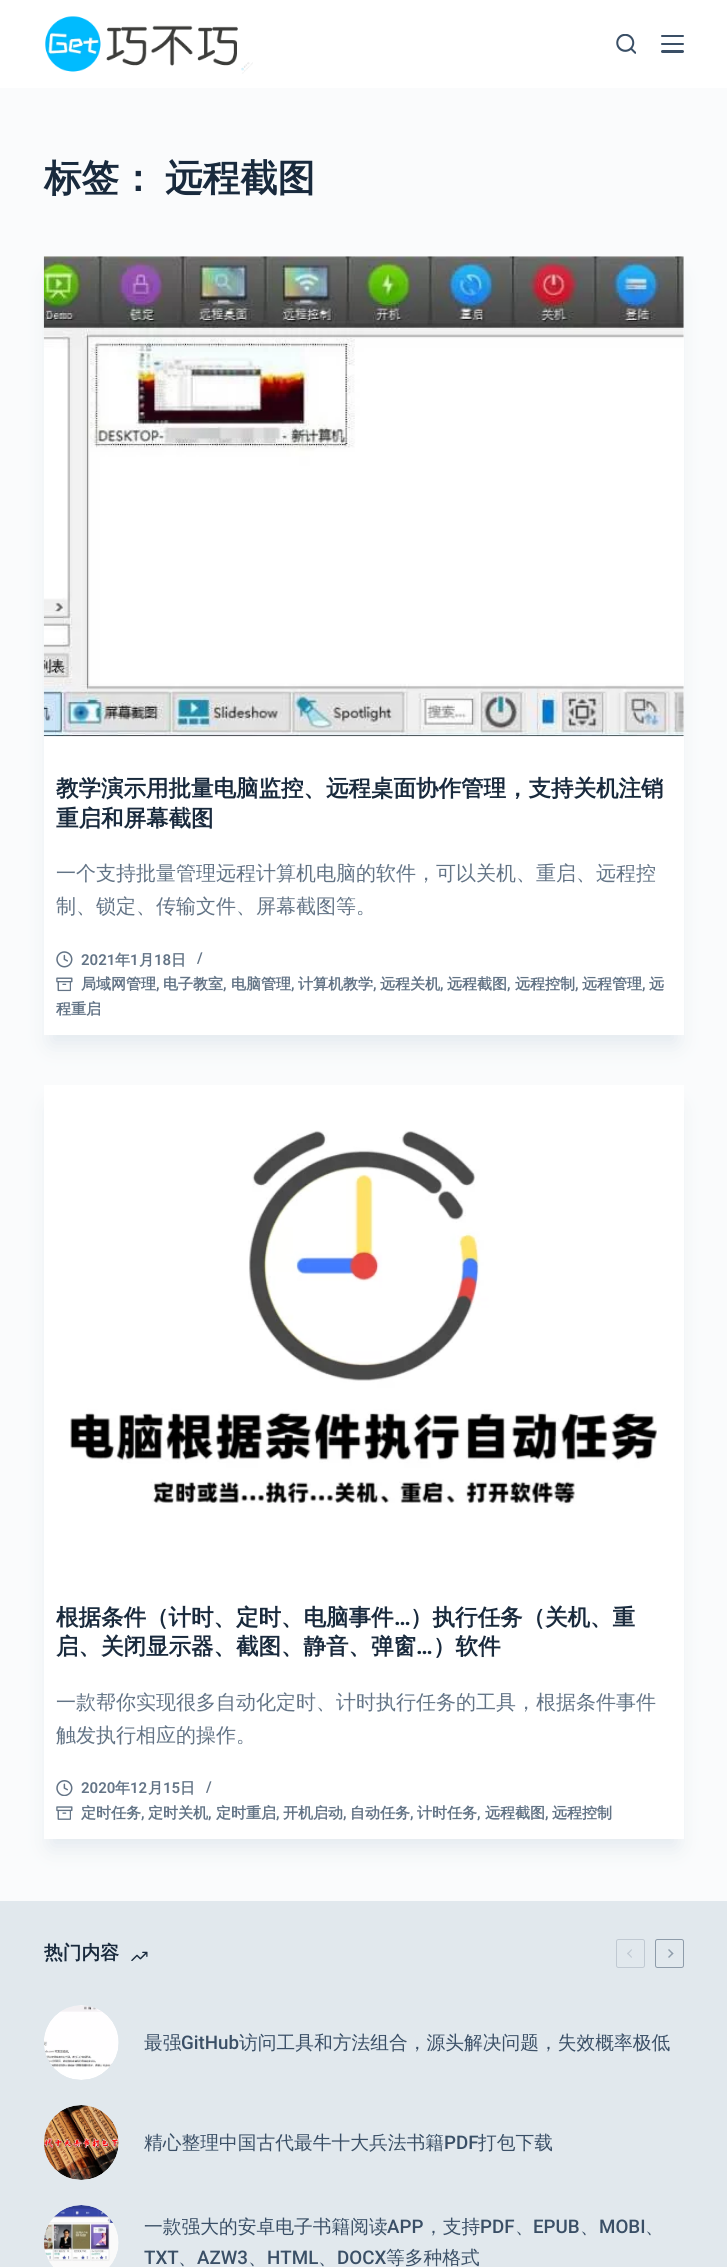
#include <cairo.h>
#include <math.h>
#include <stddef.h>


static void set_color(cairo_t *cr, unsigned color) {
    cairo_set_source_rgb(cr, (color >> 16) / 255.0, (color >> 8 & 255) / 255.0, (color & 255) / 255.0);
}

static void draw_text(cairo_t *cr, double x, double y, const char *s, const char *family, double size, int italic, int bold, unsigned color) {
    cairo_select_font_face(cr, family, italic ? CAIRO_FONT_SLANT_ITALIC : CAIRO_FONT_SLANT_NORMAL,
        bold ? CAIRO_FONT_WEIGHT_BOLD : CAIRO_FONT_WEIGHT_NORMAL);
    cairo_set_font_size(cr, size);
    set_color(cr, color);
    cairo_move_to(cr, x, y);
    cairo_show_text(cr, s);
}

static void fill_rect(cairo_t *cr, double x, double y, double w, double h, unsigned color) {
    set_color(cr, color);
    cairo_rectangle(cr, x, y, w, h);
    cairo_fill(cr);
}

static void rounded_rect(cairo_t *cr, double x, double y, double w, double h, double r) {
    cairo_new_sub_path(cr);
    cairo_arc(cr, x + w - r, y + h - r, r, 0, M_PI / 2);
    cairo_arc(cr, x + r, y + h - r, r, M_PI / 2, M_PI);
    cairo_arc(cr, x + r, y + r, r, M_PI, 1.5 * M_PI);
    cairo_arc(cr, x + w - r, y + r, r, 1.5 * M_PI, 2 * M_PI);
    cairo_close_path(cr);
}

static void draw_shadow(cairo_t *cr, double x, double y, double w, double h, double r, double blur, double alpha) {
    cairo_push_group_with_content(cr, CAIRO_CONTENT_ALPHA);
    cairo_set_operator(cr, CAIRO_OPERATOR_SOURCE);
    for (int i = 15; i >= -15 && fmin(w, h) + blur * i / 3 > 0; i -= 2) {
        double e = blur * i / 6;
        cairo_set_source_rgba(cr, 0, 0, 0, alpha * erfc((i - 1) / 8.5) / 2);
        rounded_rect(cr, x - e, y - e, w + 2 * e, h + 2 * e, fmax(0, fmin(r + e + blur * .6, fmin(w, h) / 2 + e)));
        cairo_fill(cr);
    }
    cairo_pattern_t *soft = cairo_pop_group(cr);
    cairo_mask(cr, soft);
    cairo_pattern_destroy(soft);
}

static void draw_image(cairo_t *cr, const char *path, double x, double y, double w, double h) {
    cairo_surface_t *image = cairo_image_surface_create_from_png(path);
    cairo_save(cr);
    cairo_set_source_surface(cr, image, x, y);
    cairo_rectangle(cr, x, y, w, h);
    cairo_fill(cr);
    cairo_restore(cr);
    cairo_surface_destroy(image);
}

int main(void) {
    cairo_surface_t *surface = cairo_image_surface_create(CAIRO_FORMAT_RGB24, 727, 2267);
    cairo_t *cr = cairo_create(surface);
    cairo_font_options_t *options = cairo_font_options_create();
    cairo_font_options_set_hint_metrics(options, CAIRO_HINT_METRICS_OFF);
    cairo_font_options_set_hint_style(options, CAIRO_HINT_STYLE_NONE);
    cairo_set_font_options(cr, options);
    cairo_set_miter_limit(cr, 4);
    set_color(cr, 0xFAFBFC);
    cairo_paint(cr);
    fill_rect(cr, 0, 0, 727, 88, 0xFFFFFF);
    draw_image(cr, "assets/img1.png", 45, 16, 208, 58);
    draw_image(cr, "assets/img2.png", 616, 34, 20, 20);
    set_color(cr, 0x3A4F66);
    rounded_rect(cr, 661, 35, 23, 2, 1);
    cairo_fill(cr);
    rounded_rect(cr, 661, 43, 23, 2, 1);
    cairo_fill(cr);
    rounded_rect(cr, 661, 50, 23, 3, 1.5);
    cairo_fill(cr);
    draw_text(cr, 44, 191, "标签：", "WenQuanYi Zen Hei", 37.5, 0, 1, 0x192A3D);
    draw_text(cr, 165, 191, "远程截图", "WenQuanYi Zen Hei", 37.5, 0, 1, 0x192A3D);
    set_color(cr, 0xE1E8ED);
    draw_shadow(cr, 51, 279, 625, 764, 0, 11, 1);
    fill_rect(cr, 44, 256, 640, 779, 0xFFFFFF);
    draw_image(cr, "assets/img3.png", 43, 256, 641, 481);
    draw_text(cr, 56, 796, "教学演示用批量电脑监控、远程桌面协作管理，支持关机注销", "WenQuanYi Zen Hei", 22.5, 0, 1, 0x192A3D);
    draw_text(cr, 56, 826, "重启和屏幕截图", "WenQuanYi Zen Hei", 22.5, 0, 1, 0x192A3D);
    draw_text(cr, 56, 880, "一个支持批量管理远程计算机电脑的软件，可以关机、重启、远程控", "WenQuanYi Zen Hei Medium", 20, 0, 0, 0x637486);
    draw_text(cr, 56, 913, "制、锁定、传输文件、屏幕截图等。", "WenQuanYi Zen Hei Medium", 20, 0, 0, 0x637486);
    draw_image(cr, "assets/img4.png", 56, 951, 17, 17);
    draw_text(cr, 81, 965, "2021", "Roboto SemiBold", 15, 0, 0, 0x637486);
    draw_text(cr, 115, 965, "年", "WenQuanYi Zen Hei", 15, 0, 1, 0x637486);
    draw_text(cr, 130, 965, "1", "Roboto SemiBold", 15, 0, 0, 0x637486);
    draw_text(cr, 139, 965, "月", "WenQuanYi Zen Hei", 15, 0, 1, 0x637486);
    draw_text(cr, 154, 965, "18", "Roboto SemiBold", 15, 0, 0, 0x637486);
    draw_text(cr, 171, 965, "日", "WenQuanYi Zen Hei", 15, 0, 1, 0x637486);
    draw_text(cr, 197, 963, "/", "Roboto SemiBold", 15, 0, 0, 0x637486);
    draw_image(cr, "assets/img5.png", 56, 977, 17, 15);
    draw_text(cr, 81, 989, "局域网管理", "WenQuanYi Zen Hei", 15, 0, 1, 0x637486);
    draw_text(cr, 156, 989, ",", "Roboto SemiBold", 15, 0, 0, 0x637486);
    draw_text(cr, 163, 989, "电子教室", "WenQuanYi Zen Hei", 15, 0, 1, 0x637486);
    draw_text(cr, 223, 989, ",", "Roboto SemiBold", 15, 0, 0, 0x637486);
    draw_text(cr, 231, 989, "电脑管理", "WenQuanYi Zen Hei", 15, 0, 1, 0x637486);
    draw_text(cr, 291, 989, ",", "Roboto SemiBold", 15, 0, 0, 0x637486);
    draw_text(cr, 298, 989, "计算机教学", "WenQuanYi Zen Hei", 15, 0, 1, 0x637486);
    draw_text(cr, 373, 989, ",", "Roboto SemiBold", 15, 0, 0, 0x637486);
    draw_text(cr, 380, 989, "远程关机", "WenQuanYi Zen Hei", 15, 0, 1, 0x637486);
    draw_text(cr, 440, 989, ",", "Roboto SemiBold", 15, 0, 0, 0x637486);
    draw_text(cr, 447, 989, "远程截图", "WenQuanYi Zen Hei", 15, 0, 1, 0x637486);
    draw_text(cr, 507, 989, ",", "Roboto SemiBold", 15, 0, 0, 0x637486);
    draw_text(cr, 515, 989, "远程控制", "WenQuanYi Zen Hei", 15, 0, 1, 0x637486);
    draw_text(cr, 575, 989, ",", "Roboto SemiBold", 15, 0, 0, 0x637486);
    draw_text(cr, 582, 989, "远程管理", "WenQuanYi Zen Hei", 15, 0, 1, 0x637486);
    draw_text(cr, 642, 989, ",", "Roboto SemiBold", 15, 0, 0, 0x637486);
    draw_text(cr, 649, 989, "远", "WenQuanYi Zen Hei", 15, 0, 1, 0x637486);
    draw_text(cr, 56, 1014, "程重启", "WenQuanYi Zen Hei", 15, 0, 1, 0x637486);
    set_color(cr, 0xE1E8ED);
    draw_shadow(cr, 51, 1108, 625, 738, 0, 11, 1);
    fill_rect(cr, 44, 1085, 640, 754, 0xFFFFFF);
    draw_image(cr, "assets/img6.png", 70, 1130, 587, 375);
    draw_text(cr, 56, 1625, "根据条件（计时、定时、电脑事件", "WenQuanYi Zen Hei", 22.5, 0, 1, 0x192A3D);
    draw_text(cr, 394, 1625, "…", "Roboto", 22.5, 0, 1, 0x192A3D);
    draw_text(cr, 410, 1625, "）执行任务（关机、重", "WenQuanYi Zen Hei", 22.5, 0, 1, 0x192A3D);
    draw_text(cr, 56, 1654, "启、关闭显示器、截图、静音、弹窗", "WenQuanYi Zen Hei", 22.5, 0, 1, 0x192A3D);
    draw_text(cr, 416, 1654, "…", "Roboto", 22.5, 0, 1, 0x192A3D);
    draw_text(cr, 433, 1654, "）软件", "WenQuanYi Zen Hei", 22.5, 0, 1, 0x192A3D);
    draw_text(cr, 56, 1709, "一款帮你实现很多自动化定时、计时执行任务的工具，根据条件事件", "WenQuanYi Zen Hei Medium", 20, 0, 0, 0x637486);
    draw_text(cr, 56, 1742, "触发执行相应的操作。", "WenQuanYi Zen Hei Medium", 20, 0, 0, 0x637486);
    draw_image(cr, "assets/img7.png", 56, 1780, 17, 16);
    draw_text(cr, 81, 1793, "2020", "Roboto SemiBold", 15, 0, 0, 0x637486);
    draw_text(cr, 115, 1793, "年", "WenQuanYi Zen Hei", 15, 0, 1, 0x637486);
    draw_text(cr, 130, 1793, "12", "Roboto SemiBold", 15, 0, 0, 0x637486);
    draw_text(cr, 148, 1793, "月", "WenQuanYi Zen Hei", 15, 0, 1, 0x637486);
    draw_text(cr, 163, 1793, "15", "Roboto SemiBold", 15, 0, 0, 0x637486);
    draw_text(cr, 180, 1793, "日", "WenQuanYi Zen Hei", 15, 0, 1, 0x637486);
    draw_text(cr, 206, 1792, "/", "Roboto SemiBold", 15, 0, 0, 0x637486);
    draw_image(cr, "assets/img8.png", 56, 1806, 17, 14);
    draw_text(cr, 81, 1818, "定时任务", "WenQuanYi Zen Hei", 15, 0, 1, 0x637486);
    draw_text(cr, 141, 1818, ",", "Roboto SemiBold", 15, 0, 0, 0x637486);
    draw_text(cr, 148, 1818, "定时关机", "WenQuanYi Zen Hei", 15, 0, 1, 0x637486);
    draw_text(cr, 208, 1818, ",", "Roboto SemiBold", 15, 0, 0, 0x637486);
    draw_text(cr, 216, 1818, "定时重启", "WenQuanYi Zen Hei", 15, 0, 1, 0x637486);
    draw_text(cr, 276, 1818, ",", "Roboto SemiBold", 15, 0, 0, 0x637486);
    draw_text(cr, 283, 1818, "开机启动", "WenQuanYi Zen Hei", 15, 0, 1, 0x637486);
    draw_text(cr, 343, 1818, ",", "Roboto SemiBold", 15, 0, 0, 0x637486);
    draw_text(cr, 350, 1818, "自动任务", "WenQuanYi Zen Hei", 15, 0, 1, 0x637486);
    draw_text(cr, 410, 1818, ",", "Roboto SemiBold", 15, 0, 0, 0x637486);
    draw_text(cr, 417, 1818, "计时任务", "WenQuanYi Zen Hei", 15, 0, 1, 0x637486);
    draw_text(cr, 477, 1818, ",", "Roboto SemiBold", 15, 0, 0, 0x637486);
    draw_text(cr, 485, 1818, "远程截图", "WenQuanYi Zen Hei", 15, 0, 1, 0x637486);
    draw_text(cr, 545, 1818, ",", "Roboto SemiBold", 15, 0, 0, 0x637486);
    draw_text(cr, 552, 1818, "远程控制", "WenQuanYi Zen Hei", 15, 0, 1, 0x637486);
    fill_rect(cr, 0, 1901, 727, 366, 0xE1E8ED);
    draw_text(cr, 44, 1959, "热门内容", "WenQuanYi Zen Hei", 18.75, 0, 1, 0x192A3D);
    draw_image(cr, "assets/img9.png", 131, 1951, 17, 10);
    rounded_rect(cr, 616.5, 1939.5, 28, 28, 2);
    set_color(cr, 0xC0C9D2);
    cairo_set_line_width(cr, 1);
    cairo_stroke(cr);
    cairo_new_path(cr);
    cairo_move_to(cr, 627, 1953.5);
    cairo_line_to(cr, 631.5, 1949);
    cairo_line_to(cr, 632, 1950);
    cairo_line_to(cr, 628, 1954.5);
    cairo_close_path(cr);
    cairo_fill(cr);
    cairo_new_path(cr);
    cairo_move_to(cr, 627, 1953.5);
    cairo_line_to(cr, 628, 1952.5);
    cairo_line_to(cr, 632, 1957);
    cairo_line_to(cr, 631.5, 1958);
    cairo_close_path(cr);
    cairo_fill(cr);
    rounded_rect(cr, 655.5, 1939.5, 28, 28, 2);
    set_color(cr, 0x8E9CAA);
    cairo_stroke(cr);
    cairo_new_path(cr);
    cairo_move_to(cr, 673.5, 1953.5);
    cairo_line_to(cr, 669, 1958);
    cairo_line_to(cr, 668, 1957);
    cairo_line_to(cr, 672.5, 1952.5);
    cairo_close_path(cr);
    cairo_fill(cr);
    cairo_new_path(cr);
    cairo_move_to(cr, 673.5, 1953.5);
    cairo_line_to(cr, 672.5, 1954.5);
    cairo_line_to(cr, 668, 1950);
    cairo_line_to(cr, 669, 1949);
    cairo_close_path(cr);
    cairo_fill(cr);
    draw_image(cr, "assets/img10.png", 44, 2005, 75, 75);
    draw_text(cr, 144, 2049, "最强", "WenQuanYi Zen Hei Medium", 18.75, 0, 0, 0x3A4F66);
    draw_text(cr, 181, 2049, "GitHub", "Roboto Medium", 18.75, 0, 0, 0x3A4F66);
    draw_text(cr, 239, 2049, "访问工具和方法组合，源头解决问题，失效概率极低", "WenQuanYi Zen Hei Medium", 18.75, 0, 0, 0x3A4F66);
    draw_image(cr, "assets/img11.png", 44, 2105, 75, 75);
    draw_text(cr, 144, 2149, "精心整理中国古代最牛十大兵法书籍", "WenQuanYi Zen Hei Medium", 18.75, 0, 0, 0x3A4F66);
    draw_text(cr, 444, 2149, "PDF", "Roboto Medium", 18.75, 0, 0, 0x3A4F66);
    draw_text(cr, 478, 2149, "打包下载", "WenQuanYi Zen Hei Medium", 18.75, 0, 0, 0x3A4F66);
    draw_image(cr, "assets/img12.png", 44, 2205, 75, 62);
    draw_text(cr, 144, 2233, "一款强大的安卓电子书籍阅读", "WenQuanYi Zen Hei Medium", 18.75, 0, 0, 0x3A4F66);
    draw_text(cr, 387, 2233, "APP", "Roboto Medium", 18.75, 0, 0, 0x3A4F66);
    draw_text(cr, 424, 2233, "，支持", "WenQuanYi Zen Hei Medium", 18.75, 0, 0, 0x3A4F66);
    draw_text(cr, 480, 2233, "PDF", "Roboto Medium", 18.75, 0, 0, 0x3A4F66);
    draw_text(cr, 515, 2233, "、", "WenQuanYi Zen Hei Medium", 18.75, 0, 0, 0x3A4F66);
    draw_text(cr, 533, 2233, "EPUB", "Roboto Medium", 18.75, 0, 0, 0x3A4F66);
    draw_text(cr, 580, 2233, "、", "WenQuanYi Zen Hei Medium", 18.75, 0, 0, 0x3A4F66);
    draw_text(cr, 599, 2233, "MOBI", "Roboto Medium", 18.75, 0, 0, 0x3A4F66);
    draw_text(cr, 645, 2233, "、", "WenQuanYi Zen Hei Medium", 18.75, 0, 0, 0x3A4F66);
    draw_text(cr, 144, 2264, "TXT", "Roboto Medium", 18.75, 0, 0, 0x3A4F66);
    draw_text(cr, 178, 2264, "、", "WenQuanYi Zen Hei Medium", 18.75, 0, 0, 0x3A4F66);
    draw_text(cr, 197, 2264, "AZW3", "Roboto Medium", 18.75, 0, 0, 0x3A4F66);
    draw_text(cr, 248, 2264, "、", "WenQuanYi Zen Hei Medium", 18.75, 0, 0, 0x3A4F66);
    draw_text(cr, 267, 2264, "HTML", "Roboto Medium", 18.75, 0, 0, 0x3A4F66);
    draw_text(cr, 318, 2264, "、", "WenQuanYi Zen Hei Medium", 18.75, 0, 0, 0x3A4F66);
    draw_text(cr, 337, 2264, "DOCX", "Roboto Medium", 18.75, 0, 0, 0x3A4F66);
    draw_text(cr, 386, 2264, "等多种格式", "WenQuanYi Zen Hei Medium", 18.75, 0, 0, 0x3A4F66);
    cairo_surface_write_to_png(surface, "output.png");
    cairo_font_options_destroy(options);
    cairo_destroy(cr);
    cairo_surface_destroy(surface);
    return 0;
}
